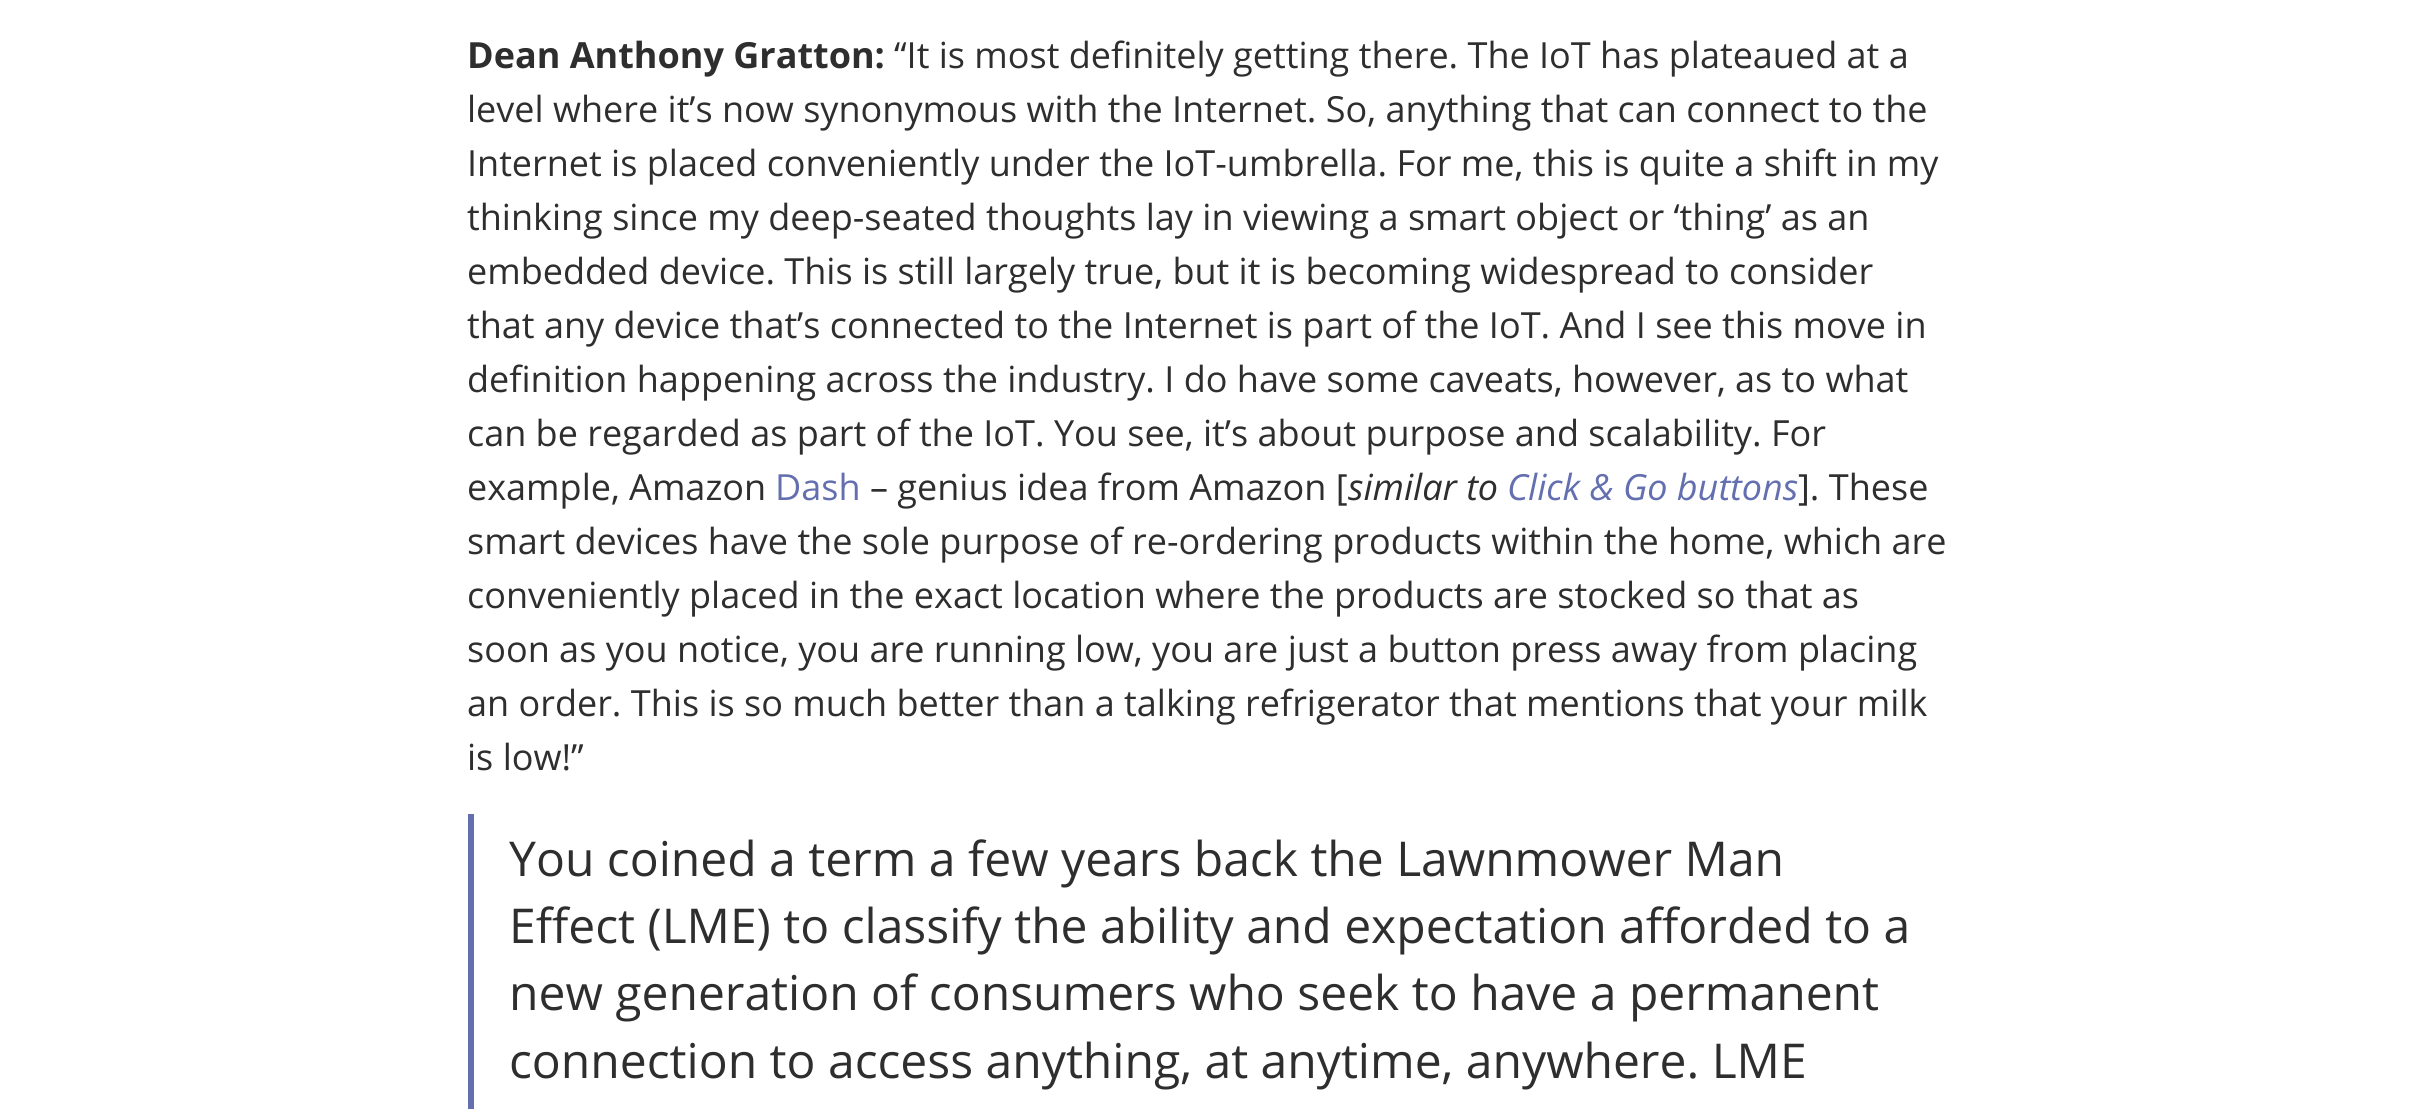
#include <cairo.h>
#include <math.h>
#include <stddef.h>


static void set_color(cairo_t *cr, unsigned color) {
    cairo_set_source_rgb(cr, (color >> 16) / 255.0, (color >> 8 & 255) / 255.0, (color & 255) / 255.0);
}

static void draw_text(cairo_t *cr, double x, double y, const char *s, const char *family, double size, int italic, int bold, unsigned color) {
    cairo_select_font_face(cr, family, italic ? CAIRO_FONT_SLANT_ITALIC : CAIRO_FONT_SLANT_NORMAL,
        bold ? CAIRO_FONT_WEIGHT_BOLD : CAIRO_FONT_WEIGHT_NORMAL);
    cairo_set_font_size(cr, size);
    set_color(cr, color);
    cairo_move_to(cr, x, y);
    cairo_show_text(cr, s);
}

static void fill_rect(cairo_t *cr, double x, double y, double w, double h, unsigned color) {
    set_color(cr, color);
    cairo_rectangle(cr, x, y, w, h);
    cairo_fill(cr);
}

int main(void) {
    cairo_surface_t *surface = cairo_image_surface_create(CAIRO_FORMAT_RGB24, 2413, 1109);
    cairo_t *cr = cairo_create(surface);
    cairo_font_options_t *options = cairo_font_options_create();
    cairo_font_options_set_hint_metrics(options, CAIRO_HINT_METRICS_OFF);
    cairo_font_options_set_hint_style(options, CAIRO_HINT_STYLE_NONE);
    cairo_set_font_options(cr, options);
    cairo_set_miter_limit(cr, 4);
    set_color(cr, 0xFFFFFF);
    cairo_paint(cr);
    draw_text(cr, 467, 68, "Dean Anthony Gratton:", "Open Sans", 36, 0, 1, 0x2F2E2E);
    draw_text(cr, 894, 68, "“It is most definitely getting there. The IoT has plateaued at a", "Open Sans", 36, 0, 0, 0x2F2E2E);
    draw_text(cr, 467, 122, "level where it’s now synonymous with the Internet. So, anything that can connect to the", "Open Sans", 36, 0, 0, 0x2F2E2E);
    draw_text(cr, 467, 176, "Internet is placed conveniently under the IoT-umbrella. For me, this is quite a shift in my", "Open Sans", 36, 0, 0, 0x2F2E2E);
    draw_text(cr, 467, 230, "thinking since my deep-seated thoughts lay in viewing a smart object or ‘thing’ as an", "Open Sans", 36, 0, 0, 0x2F2E2E);
    draw_text(cr, 467, 284, "embedded device. This is still largely true, but it is becoming widespread to consider", "Open Sans", 36, 0, 0, 0x2F2E2E);
    draw_text(cr, 467, 338, "that any device that’s connected to the Internet is part of the IoT. And I see this move in", "Open Sans", 36, 0, 0, 0x2F2E2E);
    draw_text(cr, 467, 392, "definition happening across the industry. I do have some caveats, however, as to what", "Open Sans", 36, 0, 0, 0x2F2E2E);
    draw_text(cr, 467, 446, "can be regarded as part of the IoT. You see, it’s about purpose and scalability. For", "Open Sans", 36, 0, 0, 0x2F2E2E);
    draw_text(cr, 467, 500, "example, Amazon", "Open Sans", 36, 0, 0, 0x2F2E2E);
    draw_text(cr, 775, 500, "Dash", "Open Sans", 36, 0, 0, 0x646FB0);
    draw_text(cr, 870, 500, "– genius idea from Amazon [", "Open Sans", 36, 0, 0, 0x2F2E2E);
    draw_text(cr, 1348, 500, "similar to", "Open Sans", 36, 1, 0, 0x2F2E2E);
    draw_text(cr, 1507, 500, "Click & Go buttons", "Open Sans", 36, 1, 0, 0x646FB0);
    draw_text(cr, 1798, 500, "]. These", "Open Sans", 36, 0, 0, 0x2F2E2E);
    draw_text(cr, 467, 554, "smart devices have the sole purpose of re-ordering products within the home, which are", "Open Sans", 36, 0, 0, 0x2F2E2E);
    draw_text(cr, 467, 608, "conveniently placed in the exact location where the products are stocked so that as", "Open Sans", 36, 0, 0, 0x2F2E2E);
    draw_text(cr, 467, 662, "soon as you notice, you are running low, you are just a button press away from placing", "Open Sans", 36, 0, 0, 0x2F2E2E);
    draw_text(cr, 467, 716, "an order. This is so much better than a talking refrigerator that mentions that your milk", "Open Sans", 36, 0, 0, 0x2F2E2E);
    draw_text(cr, 467, 770, "is low!”", "Open Sans", 36, 0, 0, 0x2F2E2E);
    fill_rect(cr, 468, 814, 6, 295, 0x646FB0);
    draw_text(cr, 509, 876, "You coined a term a few years back the Lawnmower Man", "Open Sans", 48, 0, 0, 0x2F2E2E);
    draw_text(cr, 509, 943, "Effect (LME) to classify the ability and expectation afforded to a", "Open Sans", 48, 0, 0, 0x2F2E2E);
    draw_text(cr, 509, 1010, "new generation of consumers who seek to have a permanent", "Open Sans", 48, 0, 0, 0x2F2E2E);
    draw_text(cr, 509, 1078, "connection to access anything, at anytime, anywhere. LME", "Open Sans", 48, 0, 0, 0x2F2E2E);
    cairo_surface_write_to_png(surface, "output.png");
    cairo_font_options_destroy(options);
    cairo_destroy(cr);
    cairo_surface_destroy(surface);
    return 0;
}
